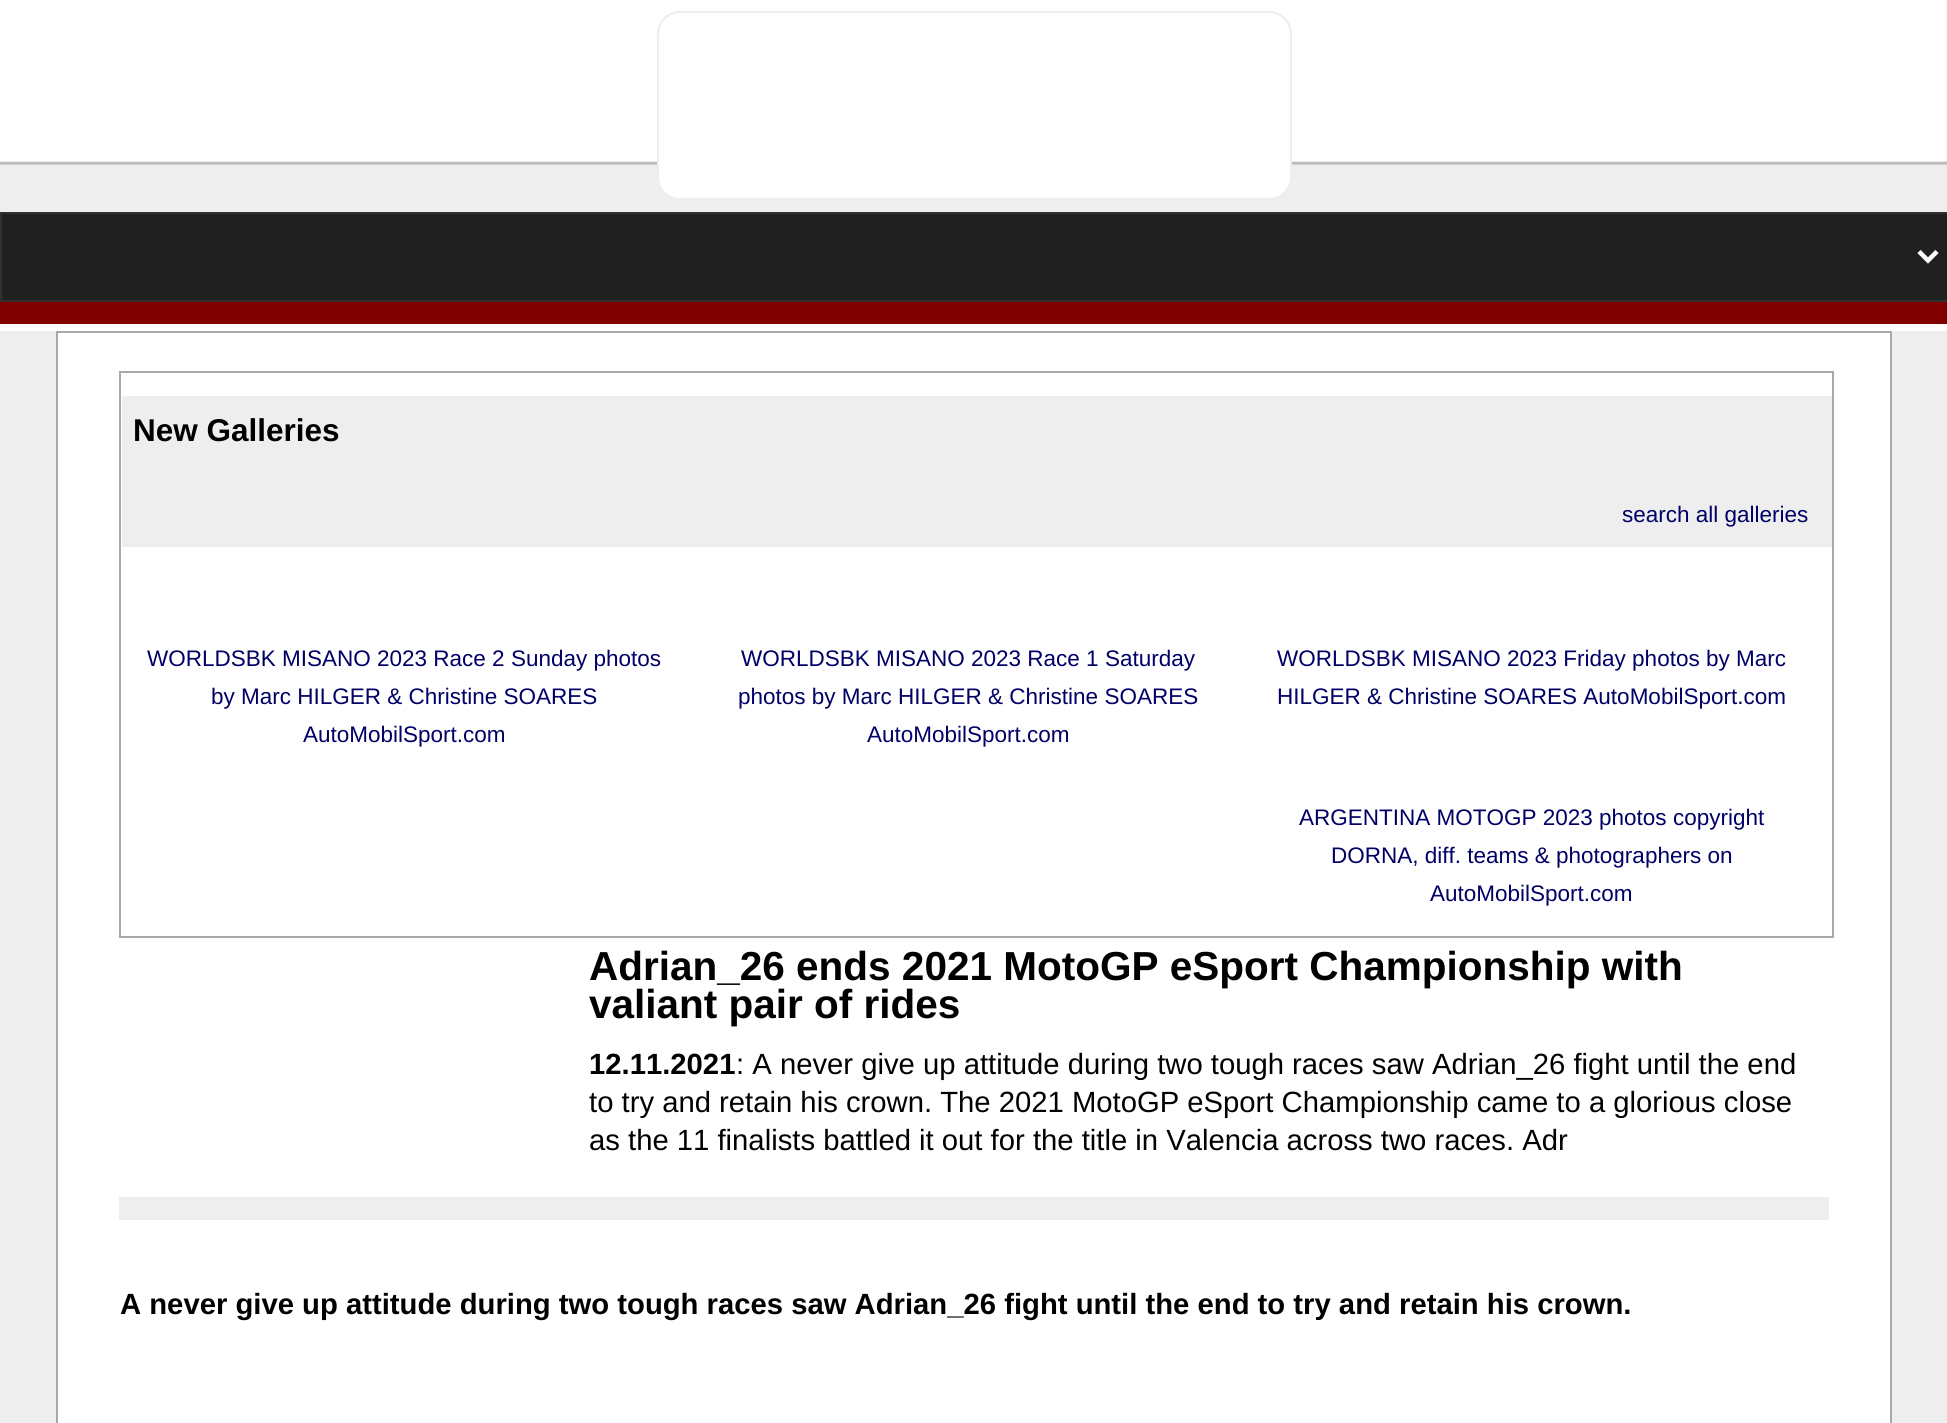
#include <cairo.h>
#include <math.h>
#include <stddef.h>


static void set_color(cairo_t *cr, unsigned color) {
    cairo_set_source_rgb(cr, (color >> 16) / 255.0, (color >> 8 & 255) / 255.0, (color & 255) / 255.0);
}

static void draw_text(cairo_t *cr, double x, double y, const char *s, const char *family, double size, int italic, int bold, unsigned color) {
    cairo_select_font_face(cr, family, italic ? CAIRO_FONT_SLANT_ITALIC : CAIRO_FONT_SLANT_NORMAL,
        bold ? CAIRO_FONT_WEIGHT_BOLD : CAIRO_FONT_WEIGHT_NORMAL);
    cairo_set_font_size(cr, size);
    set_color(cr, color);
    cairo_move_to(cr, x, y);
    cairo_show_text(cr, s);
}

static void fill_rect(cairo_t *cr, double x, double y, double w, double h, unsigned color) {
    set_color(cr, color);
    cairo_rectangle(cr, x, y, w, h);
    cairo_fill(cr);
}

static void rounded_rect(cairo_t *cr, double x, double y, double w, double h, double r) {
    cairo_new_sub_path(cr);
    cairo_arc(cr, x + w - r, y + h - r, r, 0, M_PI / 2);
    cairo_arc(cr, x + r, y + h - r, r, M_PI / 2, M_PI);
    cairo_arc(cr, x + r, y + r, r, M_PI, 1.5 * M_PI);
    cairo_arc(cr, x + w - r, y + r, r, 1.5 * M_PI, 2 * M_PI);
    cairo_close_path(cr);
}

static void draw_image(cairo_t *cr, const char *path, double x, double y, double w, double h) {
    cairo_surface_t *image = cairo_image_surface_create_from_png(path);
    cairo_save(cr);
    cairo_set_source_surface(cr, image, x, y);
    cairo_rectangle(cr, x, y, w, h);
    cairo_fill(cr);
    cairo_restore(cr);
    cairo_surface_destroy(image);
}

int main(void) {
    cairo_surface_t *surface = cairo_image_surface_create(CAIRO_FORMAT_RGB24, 1947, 1423);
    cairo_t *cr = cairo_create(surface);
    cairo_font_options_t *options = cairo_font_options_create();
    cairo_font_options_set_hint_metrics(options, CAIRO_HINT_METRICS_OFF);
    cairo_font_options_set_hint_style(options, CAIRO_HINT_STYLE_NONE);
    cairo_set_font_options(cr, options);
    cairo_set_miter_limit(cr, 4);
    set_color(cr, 0xFFFFFF);
    cairo_paint(cr);
    draw_image(cr, "assets/img1.png", 0, 161, 1947, 163);
    set_color(cr, 0xFFFFFF);
    rounded_rect(cr, 658, 12, 633, 187, 22);
    cairo_fill_preserve(cr);
    set_color(cr, 0xEEEEEE);
    cairo_stroke(cr);
    set_color(cr, 0x202020);
    cairo_rectangle(cr, 1, 213, 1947, 88);
    cairo_fill_preserve(cr);
    set_color(cr, 0x303030);
    cairo_stroke(cr);
    cairo_new_path(cr);
    cairo_move_to(cr, 1919, 251.5);
    cairo_line_to(cr, 1928, 260.5);
    cairo_line_to(cr, 1937, 251.5);
    set_color(cr, 0xFFFFFF);
    cairo_set_line_width(cr, 4.5);
    cairo_stroke(cr);
    fill_rect(cr, 0, 331, 1947, 1092, 0xEEEEEE);
    set_color(cr, 0xFFFFFF);
    cairo_rectangle(cr, 57, 332, 1834, 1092);
    cairo_fill_preserve(cr);
    set_color(cr, 0xA8A8A8);
    cairo_set_line_width(cr, 2);
    cairo_stroke(cr);
    cairo_rectangle(cr, 120, 372, 1713, 565);
    cairo_stroke(cr);
    fill_rect(cr, 122, 396, 1710, 151, 0xEEEEEE);
    draw_text(cr, 133, 441, "New Galleries", "Liberation Sans", 31.5, 0, 1, 0x000000);
    draw_text(cr, 1622, 522, "search all galleries", "Liberation Sans", 22.5, 0, 0, 0x000066);
    draw_text(cr, 147, 666, "WORLDSBK MISANO 2023 Race 2 Sunday photos", "Liberation Sans", 22.5, 0, 0, 0x000066);
    draw_text(cr, 211, 704, "by Marc HILGER & Christine SOARES", "Liberation Sans", 22.5, 0, 0, 0x000066);
    draw_text(cr, 303, 742, "AutoMobilSport.com", "Liberation Sans", 22.5, 0, 0, 0x000066);
    draw_text(cr, 741, 666, "WORLDSBK MISANO 2023 Race 1 Saturday", "Liberation Sans", 22.5, 0, 0, 0x000066);
    draw_text(cr, 738, 704, "photos by Marc HILGER & Christine SOARES", "Liberation Sans", 22.5, 0, 0, 0x000066);
    draw_text(cr, 867, 742, "AutoMobilSport.com", "Liberation Sans", 22.5, 0, 0, 0x000066);
    draw_text(cr, 1277, 666, "WORLDSBK MISANO 2023 Friday photos by Marc", "Liberation Sans", 22.5, 0, 0, 0x000066);
    draw_text(cr, 1277, 704, "HILGER & Christine SOARES AutoMobilSport.com", "Liberation Sans", 22.5, 0, 0, 0x000066);
    draw_text(cr, 1299, 825, "ARGENTINA MOTOGP 2023 photos copyright", "Liberation Sans", 22.5, 0, 0, 0x000066);
    draw_text(cr, 1331, 863, "DORNA, diff. teams & photographers on", "Liberation Sans", 22.5, 0, 0, 0x000066);
    draw_text(cr, 1430, 901, "AutoMobilSport.com", "Liberation Sans", 22.5, 0, 0, 0x000066);
    draw_text(cr, 589, 980, "Adrian_26 ends 2021 MotoGP eSport Championship with", "Liberation Sans", 40.5, 0, 1, 0x000000);
    draw_text(cr, 589, 1018, "valiant pair of rides", "Liberation Sans", 40.5, 0, 1, 0x000000);
    draw_text(cr, 589, 1074, "12.11.2021", "Liberation Sans", 29.25, 0, 1, 0x000000);
    draw_text(cr, 736, 1074, ": A never give up attitude during two tough races saw Adrian_26 fight until the end", "Liberation Sans", 29.25, 0, 0, 0x000000);
    draw_text(cr, 589, 1112, "to try and retain his crown. The 2021 MotoGP eSport Championship came to a glorious close", "Liberation Sans", 29.25, 0, 0, 0x000000);
    draw_text(cr, 589, 1150, "as the 11 finalists battled it out for the title in Valencia across two races. Adr", "Liberation Sans", 29.25, 0, 0, 0x000000);
    fill_rect(cr, 119, 1197, 1710, 23, 0xEEEEEE);
    draw_text(cr, 120, 1314, "A never give up attitude during two tough races saw Adrian_26 fight until the end to try and retain his crown.", "Liberation Sans", 29.25, 0, 1, 0x000000);
    cairo_surface_write_to_png(surface, "output.png");
    cairo_font_options_destroy(options);
    cairo_destroy(cr);
    cairo_surface_destroy(surface);
    return 0;
}
